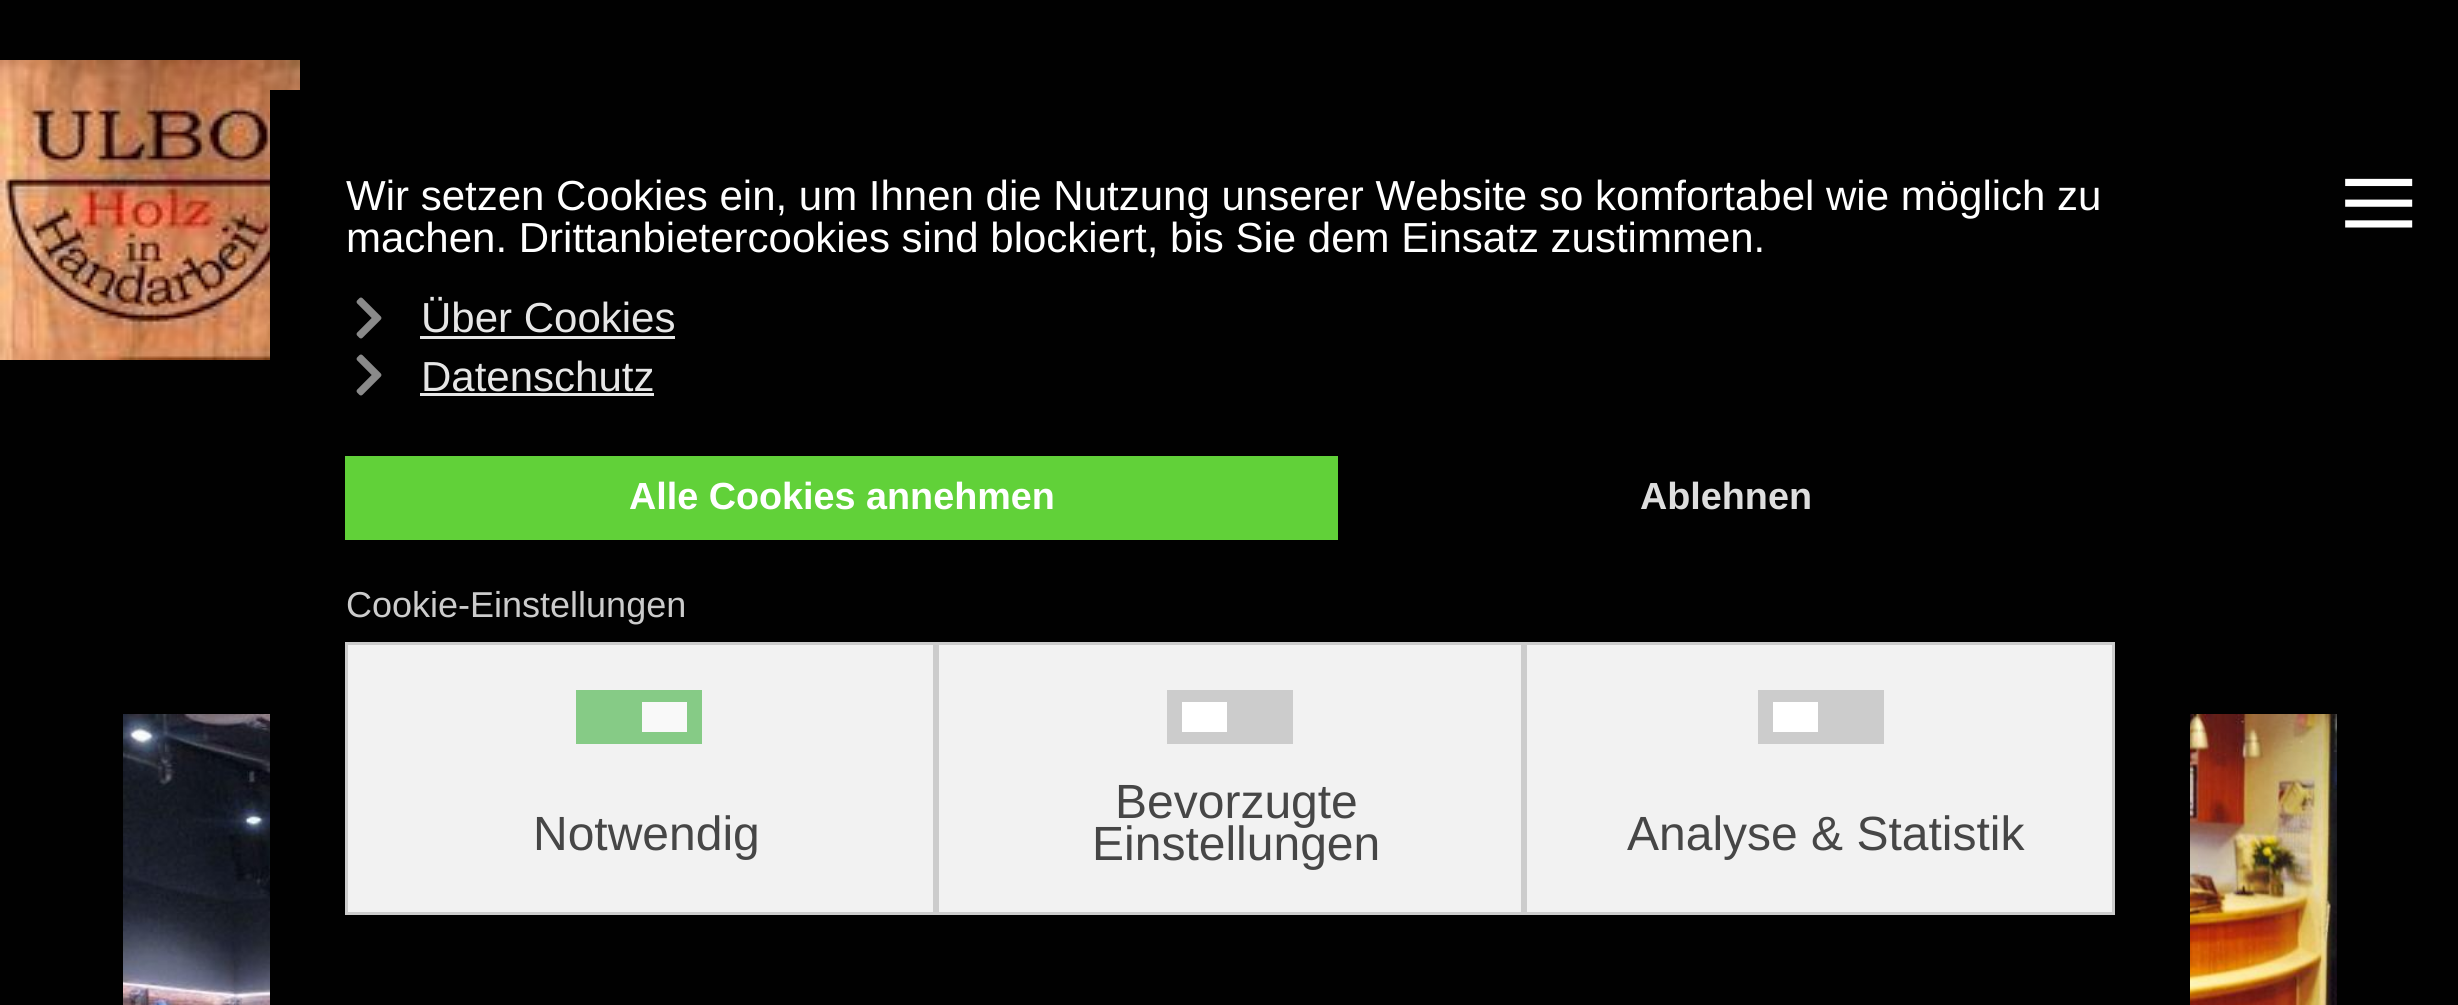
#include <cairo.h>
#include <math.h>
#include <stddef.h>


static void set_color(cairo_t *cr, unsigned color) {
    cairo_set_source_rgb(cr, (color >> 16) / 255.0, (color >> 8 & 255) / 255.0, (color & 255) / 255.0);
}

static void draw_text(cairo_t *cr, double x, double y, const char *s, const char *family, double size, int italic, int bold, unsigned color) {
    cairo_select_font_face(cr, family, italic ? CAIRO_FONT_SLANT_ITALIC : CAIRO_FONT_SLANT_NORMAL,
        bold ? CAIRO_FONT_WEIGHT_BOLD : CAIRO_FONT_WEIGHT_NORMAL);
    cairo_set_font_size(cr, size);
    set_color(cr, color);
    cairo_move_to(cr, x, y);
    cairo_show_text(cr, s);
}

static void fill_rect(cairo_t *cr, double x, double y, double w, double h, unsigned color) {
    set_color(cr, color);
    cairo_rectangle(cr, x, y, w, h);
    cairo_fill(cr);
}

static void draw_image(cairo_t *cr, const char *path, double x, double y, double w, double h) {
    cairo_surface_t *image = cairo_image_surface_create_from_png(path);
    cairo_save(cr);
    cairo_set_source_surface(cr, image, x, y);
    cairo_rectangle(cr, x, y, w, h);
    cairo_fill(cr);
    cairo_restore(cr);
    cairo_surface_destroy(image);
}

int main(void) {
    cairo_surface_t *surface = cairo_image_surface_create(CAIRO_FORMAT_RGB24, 2458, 1005);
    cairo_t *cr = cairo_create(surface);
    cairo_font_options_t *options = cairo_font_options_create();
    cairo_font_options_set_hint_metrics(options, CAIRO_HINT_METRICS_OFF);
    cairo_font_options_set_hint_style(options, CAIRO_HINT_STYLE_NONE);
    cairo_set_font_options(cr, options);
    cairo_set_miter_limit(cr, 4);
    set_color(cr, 0x010101);
    cairo_paint(cr);
    draw_image(cr, "assets/img2.png", 0, 60, 300, 300);
    fill_rect(cr, 270, 90, 30, 270, 0x000000);
    draw_text(cr, 346, 210, "Wir setzen Cookies ein, um Ihnen die Nutzung unserer Website so komfortabel wie möglich zu", "Liberation Sans", 42, 0, 0, 0xFFFFFF);
    draw_text(cr, 346, 252, "machen. Drittanbietercookies sind blockiert, bis Sie dem Einsatz zustimmen.", "Liberation Sans", 42, 0, 0, 0xFFFFFF);
    draw_image(cr, "assets/img1.png", 356, 297, 26, 42);
    draw_text(cr, 421, 332, "Über Cookies", "Liberation Sans", 42, 0, 0, 0xE6E6E6);
    fill_rect(cr, 420, 336, 255, 3, 0xE6E6E6);
    draw_image(cr, "assets/img1.png", 356, 354, 26, 42);
    draw_text(cr, 421, 391, "Datenschutz", "Liberation Sans", 42, 0, 0, 0xE6E6E6);
    fill_rect(cr, 420, 393, 234, 3, 0xE6E6E6);
    fill_rect(cr, 345, 456, 993, 84, 0x61D139);
    draw_text(cr, 629, 509, "Alle Cookies annehmen", "Liberation Sans", 37.75, 0, 1, 0xFFFFFF);
    draw_text(cr, 1640, 509, "Ablehnen", "Liberation Sans", 37.75, 0, 1, 0xDEDEDE);
    draw_text(cr, 346, 617, "Cookie-Einstellungen", "Liberation Sans", 36, 0, 0, 0xCCCCCC);
    set_color(cr, 0xF2F2F2);
    cairo_rectangle(cr, 346.5, 643.5, 588, 270);
    cairo_fill_preserve(cr);
    set_color(cr, 0xCCCCCC);
    cairo_set_line_width(cr, 3);
    cairo_stroke(cr);
    fill_rect(cr, 576, 690, 126, 54, 0x86CB86);
    fill_rect(cr, 642, 702, 45, 30, 0xF9F9F9);
    draw_text(cr, 533, 850, "Notwendig", "Liberation Sans", 48, 0, 0, 0x464646);
    set_color(cr, 0xF2F2F2);
    cairo_rectangle(cr, 937.5, 643.5, 585, 270);
    cairo_fill_preserve(cr);
    set_color(cr, 0xCCCCCC);
    cairo_stroke(cr);
    fill_rect(cr, 1167, 690, 126, 54, 0xCCCCCC);
    fill_rect(cr, 1182, 702, 45, 30, 0xFFFFFF);
    draw_text(cr, 1115, 818, "Bevorzugte", "Liberation Sans", 48, 0, 0, 0x464646);
    draw_text(cr, 1092, 860, "Einstellungen", "Liberation Sans", 48, 0, 0, 0x464646);
    set_color(cr, 0xF2F2F2);
    cairo_rectangle(cr, 1525.5, 643.5, 588, 270);
    cairo_fill_preserve(cr);
    set_color(cr, 0xCCCCCC);
    cairo_stroke(cr);
    fill_rect(cr, 1758, 690, 126, 54, 0xCCCCCC);
    fill_rect(cr, 1773, 702, 45, 30, 0xFFFFFF);
    draw_text(cr, 1627, 850, "Analyse & Statistik", "Liberation Sans", 48, 0, 0, 0x464646);
    draw_text(cr, 2338, 251, "≡", "Liberation Serif", 144, 0, 0, 0xFFFFFF);
    draw_image(cr, "assets/img3.png", 123, 714, 147, 291);
    draw_image(cr, "assets/img4.png", 2190, 714, 147, 291);
    cairo_surface_write_to_png(surface, "output.png");
    cairo_font_options_destroy(options);
    cairo_destroy(cr);
    cairo_surface_destroy(surface);
    return 0;
}
